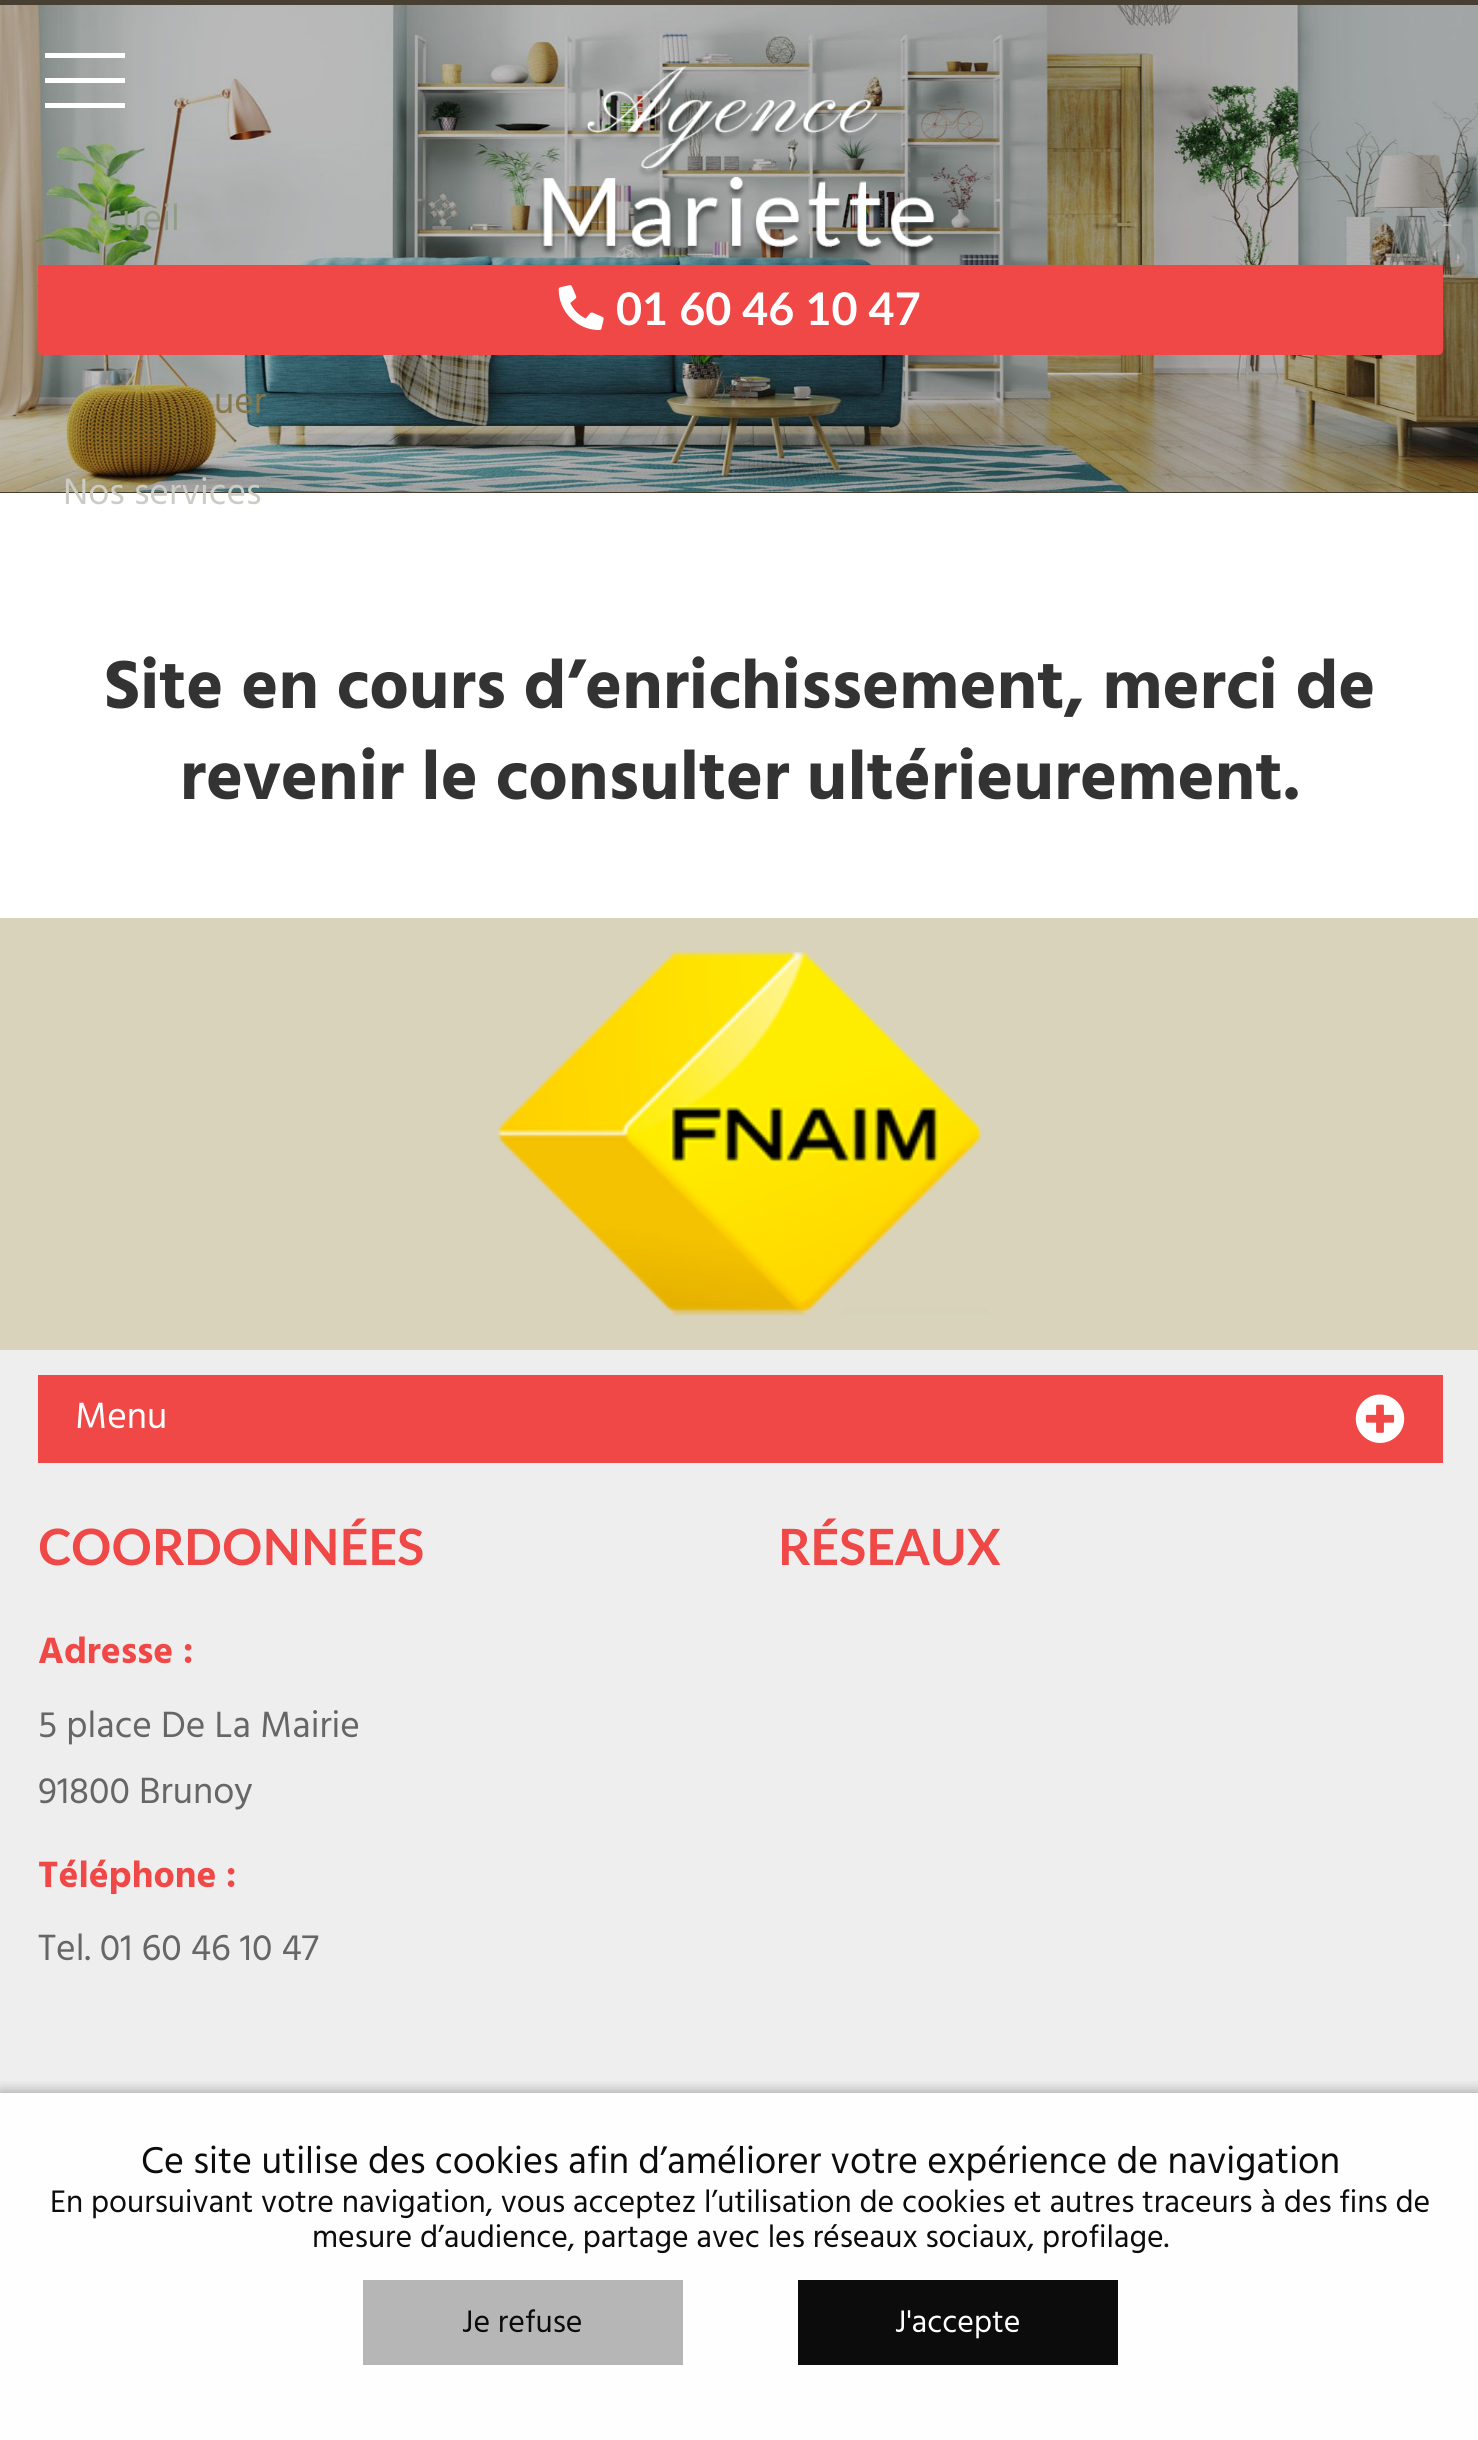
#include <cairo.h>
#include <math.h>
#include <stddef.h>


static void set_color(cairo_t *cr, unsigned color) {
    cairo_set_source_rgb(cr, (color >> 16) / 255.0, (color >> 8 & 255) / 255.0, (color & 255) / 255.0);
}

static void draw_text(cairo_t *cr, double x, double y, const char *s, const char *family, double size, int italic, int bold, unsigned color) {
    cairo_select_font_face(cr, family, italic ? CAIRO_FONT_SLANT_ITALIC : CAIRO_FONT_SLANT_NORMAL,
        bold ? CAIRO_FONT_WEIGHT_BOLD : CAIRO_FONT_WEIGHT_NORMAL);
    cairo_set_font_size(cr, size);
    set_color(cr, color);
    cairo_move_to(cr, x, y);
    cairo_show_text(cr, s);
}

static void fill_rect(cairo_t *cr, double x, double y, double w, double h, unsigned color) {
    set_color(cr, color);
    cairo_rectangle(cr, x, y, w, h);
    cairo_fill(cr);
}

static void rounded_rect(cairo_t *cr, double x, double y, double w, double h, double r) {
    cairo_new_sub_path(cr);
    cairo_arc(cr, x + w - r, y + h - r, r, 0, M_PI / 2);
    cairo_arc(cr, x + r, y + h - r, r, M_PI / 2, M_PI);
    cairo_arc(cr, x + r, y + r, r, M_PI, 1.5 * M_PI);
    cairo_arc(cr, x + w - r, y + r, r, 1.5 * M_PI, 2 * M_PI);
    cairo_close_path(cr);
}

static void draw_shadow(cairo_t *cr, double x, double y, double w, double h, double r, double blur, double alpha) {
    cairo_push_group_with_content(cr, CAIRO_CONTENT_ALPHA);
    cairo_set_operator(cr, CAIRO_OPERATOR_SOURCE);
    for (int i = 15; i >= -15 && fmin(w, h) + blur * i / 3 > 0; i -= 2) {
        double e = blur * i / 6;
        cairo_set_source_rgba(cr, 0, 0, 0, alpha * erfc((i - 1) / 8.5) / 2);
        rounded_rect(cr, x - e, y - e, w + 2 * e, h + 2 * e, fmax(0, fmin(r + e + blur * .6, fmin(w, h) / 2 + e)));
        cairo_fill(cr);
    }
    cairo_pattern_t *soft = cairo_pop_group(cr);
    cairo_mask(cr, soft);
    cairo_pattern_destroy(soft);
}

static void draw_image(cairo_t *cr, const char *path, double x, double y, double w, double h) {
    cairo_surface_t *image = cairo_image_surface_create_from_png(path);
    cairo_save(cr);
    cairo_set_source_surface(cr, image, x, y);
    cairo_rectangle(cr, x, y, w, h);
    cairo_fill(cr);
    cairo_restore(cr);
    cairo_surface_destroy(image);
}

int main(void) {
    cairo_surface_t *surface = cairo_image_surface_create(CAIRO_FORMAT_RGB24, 1478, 2440);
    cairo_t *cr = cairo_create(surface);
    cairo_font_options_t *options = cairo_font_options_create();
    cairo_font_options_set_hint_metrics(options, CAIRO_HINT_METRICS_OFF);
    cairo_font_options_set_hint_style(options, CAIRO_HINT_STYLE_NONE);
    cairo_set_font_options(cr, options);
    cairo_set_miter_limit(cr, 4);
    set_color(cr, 0xEEEEEE);
    cairo_paint(cr);
    fill_rect(cr, 0, 0, 1478, 493, 0x463F32);
    draw_image(cr, "assets/img1.png", 0, 5, 1478, 487);
    fill_rect(cr, 45, 103, 80, 5, 0xFFFFFF);
    fill_rect(cr, 45, 78, 80, 5, 0xFFFFFF);
    fill_rect(cr, 45, 53, 80, 5, 0xFFFFFF);
    draw_text(cr, 87, 230, "ccueil", "Hind Madurai", 37.5, 0, 0, 0x909D86);
    draw_text(cr, 214, 413, "uer", "Hind Madurai", 37.5, 0, 0, 0x86784C);
    fill_rect(cr, 0, 493, 1478, 425, 0xFFFFFF);
    draw_text(cr, 63, 504, "Nos services", "Hind Madurai", 37.5, 0, 0, 0xCCCCC5);
    draw_image(cr, "assets/img2.png", 540, 66, 397, 190);
    set_color(cr, 0xF04747);
    cairo_new_path(cr);
    cairo_move_to(cr, 38, 265);
    cairo_line_to(cr, 1443, 265);
    cairo_line_to(cr, 1443, 350);
    cairo_curve_to(cr, 1443, 353, 1441, 355, 1438, 355);
    cairo_line_to(cr, 43, 355);
    cairo_curve_to(cr, 40, 355, 38, 353, 38, 350);
    cairo_close_path(cr);
    cairo_fill(cr);
    draw_image(cr, "assets/img3.png", 558, 285, 46, 45);
    draw_text(cr, 616, 325, "01 60 46 10 47", "Lato", 45, 0, 1, 0xFFFFFF);
    draw_text(cr, 104, 708, "Site en cours d’enrichissement, merci de", "Hind Madurai", 70, 0, 1, 0x333333);
    draw_text(cr, 180, 799, "revenir le consulter ultérieurement.", "Hind Madurai", 70, 0, 1, 0x333333);
    fill_rect(cr, 0, 918, 1478, 432, 0xD9D3BB);
    draw_image(cr, "assets/img4.png", 497, 951, 493, 365);
    fill_rect(cr, 38, 1375, 1405, 88, 0xF04747);
    draw_text(cr, 75, 1428, "Menu", "Hind Madurai", 37.5, 0, 0, 0xFFFFFF);
    draw_image(cr, "assets/img5.png", 1355, 1394, 50, 49);
    draw_text(cr, 38, 1565, "COORDONNÉES", "Lato", 50, 0, 1, 0xF04747);
    draw_text(cr, 38, 1663, "Adresse :", "Hind Madurai", 37.5, 0, 1, 0xF04747);
    draw_text(cr, 38, 1737, "5 place De La Mairie", "Hind Madurai", 37.5, 0, 0, 0x666666);
    draw_text(cr, 38, 1803, "91800 Brunoy", "Hind Madurai", 37.5, 0, 0, 0x666666);
    draw_text(cr, 38, 1887, "Téléphone :", "Hind Madurai", 37.5, 0, 1, 0xF04747);
    draw_text(cr, 38, 1960, "Tel. 01 60 46 10 47", "Hind Madurai", 37.5, 0, 0, 0x666666);
    draw_text(cr, 778, 1565, "RÉSEAUX", "Lato", 50, 0, 1, 0xF04747);
    cairo_save(cr);
    cairo_rectangle(cr, 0, 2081, 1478, 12);
    cairo_clip(cr);
    set_color(cr, 0x000000);
    draw_shadow(cr, 0, 2093, 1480, 347, 0, 7.5, 0.38);
    cairo_restore(cr);
    cairo_set_source_rgba(cr, 1, 1, 1, 0.95);
    cairo_rectangle(cr, 0, 2093, 1478, 347);
    cairo_fill(cr);
    draw_text(cr, 141, 2173, "Ce site utilise des cookies afin d’améliorer votre expérience de navigation", "Hind Madurai", 38.25, 0, 0, 0x0C0C0C);
    draw_text(cr, 50, 2212, "En poursuivant votre navigation, vous acceptez l’utilisation de cookies et autres traceurs à des fins de", "Hind Madurai", 31.9, 0, 0, 0x0C0C0C);
    draw_text(cr, 312, 2247, "mesure d’audience, partage avec les réseaux sociaux, profilage.", "Hind Madurai", 31.9, 0, 0, 0x0C0C0C);
    cairo_set_source_rgba(cr, 0.702, 0.702, 0.702, 0.95);
    cairo_rectangle(cr, 363, 2280, 320, 85);
    cairo_fill(cr);
    draw_text(cr, 462, 2332, "Je refuse", "Hind Madurai", 31.9, 0, 0, 0x0C0C0C);
    fill_rect(cr, 798, 2280, 320, 85, 0x0C0C0C);
    draw_text(cr, 895, 2332, "J'accepte", "Hind Madurai", 31.9, 0, 0, 0xFFFFFF);
    cairo_surface_write_to_png(surface, "output.png");
    cairo_font_options_destroy(options);
    cairo_destroy(cr);
    cairo_surface_destroy(surface);
    return 0;
}
